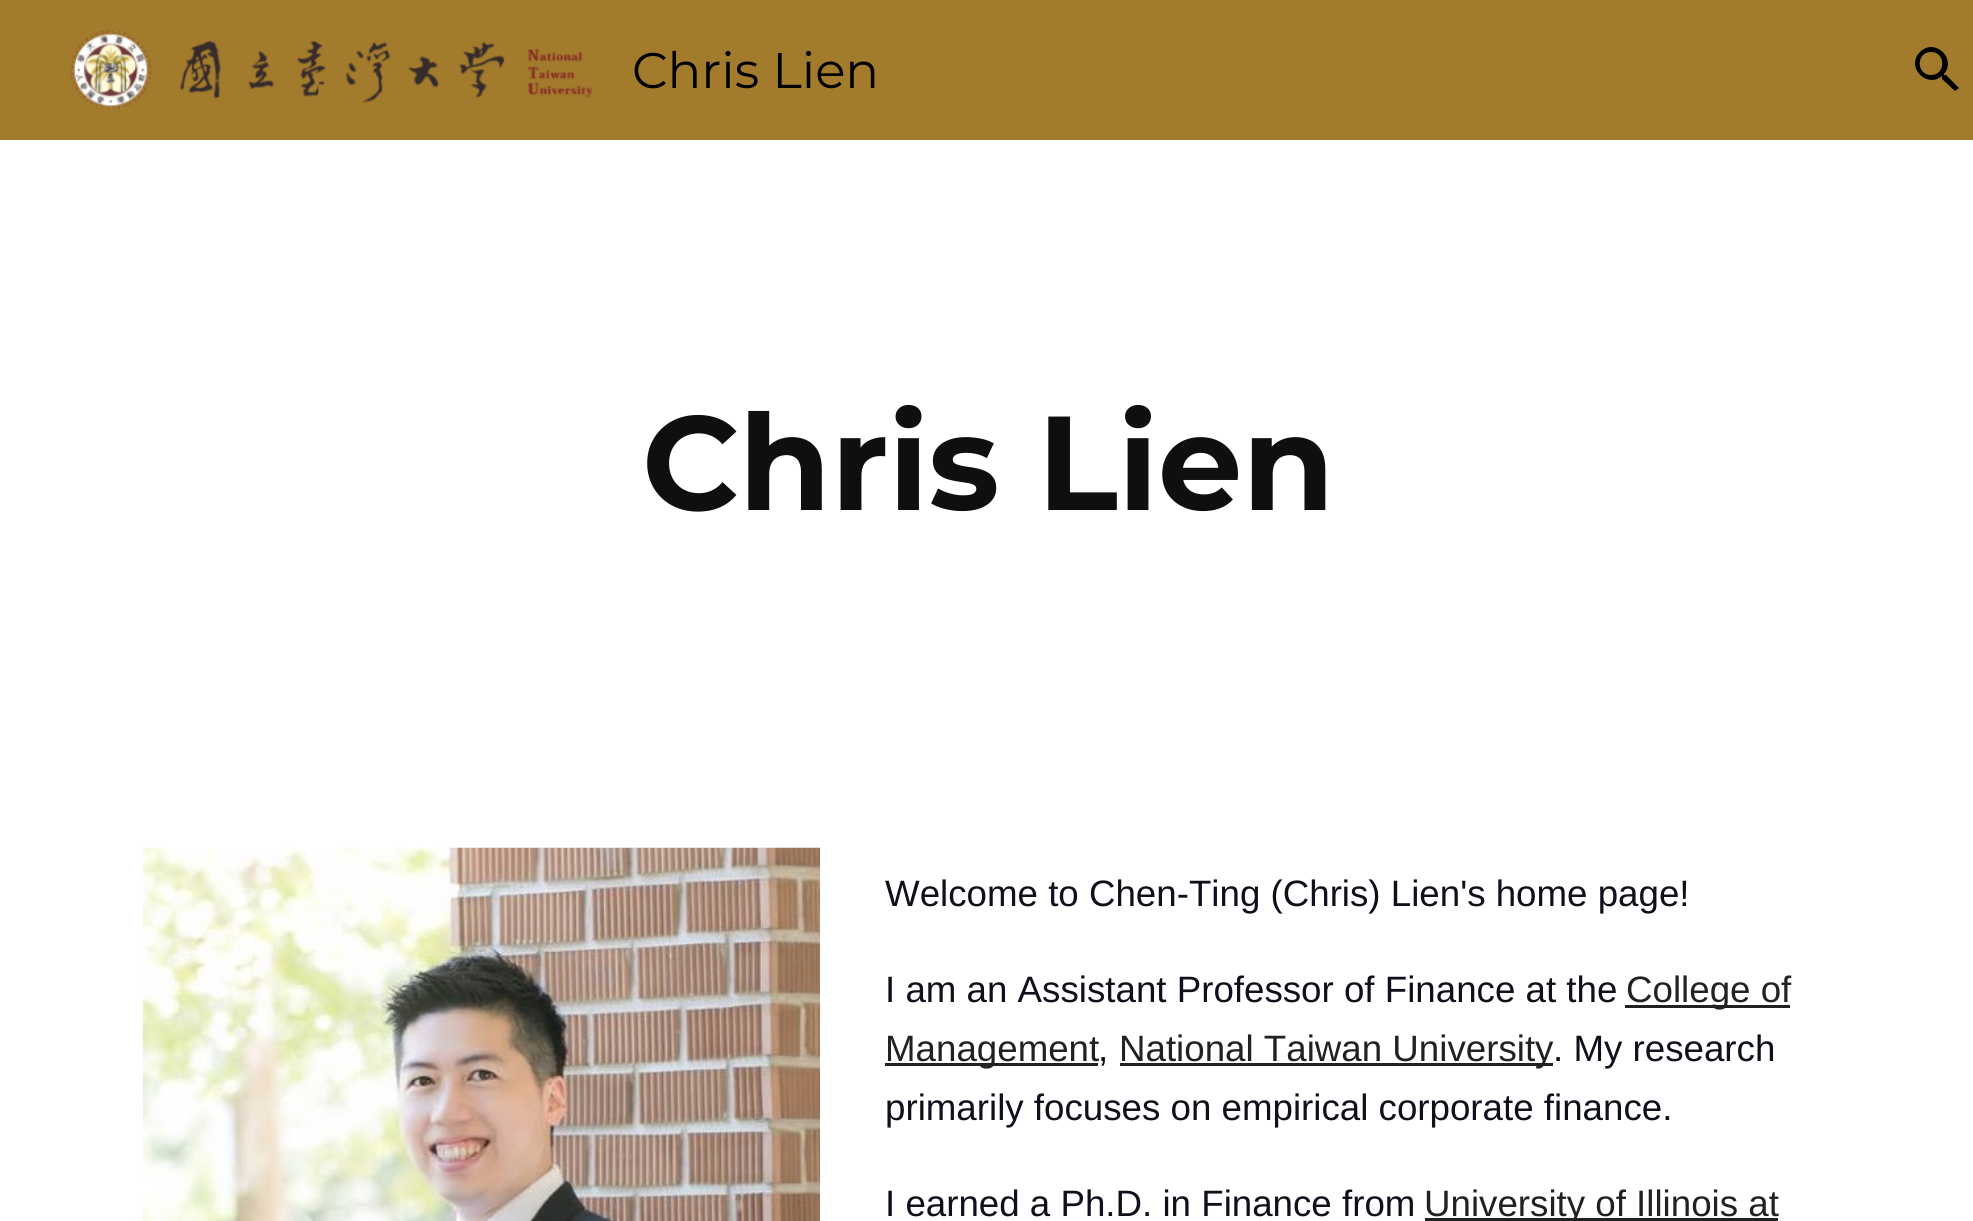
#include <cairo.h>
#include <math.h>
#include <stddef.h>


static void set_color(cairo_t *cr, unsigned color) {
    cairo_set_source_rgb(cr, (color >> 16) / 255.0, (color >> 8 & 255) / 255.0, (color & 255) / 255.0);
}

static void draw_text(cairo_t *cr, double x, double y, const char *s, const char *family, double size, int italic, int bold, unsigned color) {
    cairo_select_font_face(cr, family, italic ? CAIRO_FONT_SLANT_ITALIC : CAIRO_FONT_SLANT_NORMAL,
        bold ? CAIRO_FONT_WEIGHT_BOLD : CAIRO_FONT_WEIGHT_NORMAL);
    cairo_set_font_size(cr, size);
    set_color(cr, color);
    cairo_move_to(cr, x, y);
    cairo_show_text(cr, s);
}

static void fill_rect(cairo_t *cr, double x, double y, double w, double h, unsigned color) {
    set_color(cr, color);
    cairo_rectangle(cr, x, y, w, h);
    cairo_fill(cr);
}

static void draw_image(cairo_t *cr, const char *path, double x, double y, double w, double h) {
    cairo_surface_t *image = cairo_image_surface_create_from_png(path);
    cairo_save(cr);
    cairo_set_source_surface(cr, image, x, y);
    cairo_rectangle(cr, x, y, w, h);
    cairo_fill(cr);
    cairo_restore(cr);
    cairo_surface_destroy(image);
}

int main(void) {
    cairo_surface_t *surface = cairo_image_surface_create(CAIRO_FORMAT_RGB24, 1973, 1221);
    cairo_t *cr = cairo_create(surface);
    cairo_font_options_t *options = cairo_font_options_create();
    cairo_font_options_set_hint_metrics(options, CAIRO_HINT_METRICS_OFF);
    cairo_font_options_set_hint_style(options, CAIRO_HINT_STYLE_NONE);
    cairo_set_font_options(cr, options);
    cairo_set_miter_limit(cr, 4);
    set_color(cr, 0xFFFFFF);
    cairo_paint(cr);
    fill_rect(cr, 0, 0, 1973, 140, 0xA37B2D);
    draw_image(cr, "assets/img1.png", 70, 30, 523, 80);
    draw_text(cr, 632, 88, "Chris Lien", "Montserrat", 50, 0, 0, 0x000000);
    cairo_new_path(cr);
    cairo_move_to(cr, 1946, 75);
    cairo_line_to(cr, 1944, 75);
    cairo_line_to(cr, 1944, 74);
    cairo_curve_to(cr, 1957, 59, 1935, 37, 1920, 52);
    cairo_curve_to(cr, 1905, 67, 1927, 89, 1942, 76);
    cairo_line_to(cr, 1942, 77);
    cairo_line_to(cr, 1942, 79);
    cairo_line_to(cr, 1955, 91);
    cairo_line_to(cr, 1959, 88);
    cairo_close_path(cr);
    cairo_move_to(cr, 1931, 75);
    cairo_curve_to(cr, 1916, 75, 1916, 52, 1931, 52);
    cairo_curve_to(cr, 1946, 52, 1946, 75, 1931, 75);
    cairo_close_path(cr);
    cairo_fill(cr);
    draw_text(cr, 642, 510, "Chris Lien", "Montserrat", 133.5, 0, 1, 0x0F0F0F);
    draw_image(cr, "assets/img2.png", 142, 847, 678, 374);
    draw_text(cr, 885, 906, "Welcome to Chen-Ting (Chris) Lien's home page!", "Liberation Sans", 36.7, 0, 0, 0x0E101A);
    draw_text(cr, 885, 1002, "I am an Assistant Professor of Finance at the", "Liberation Sans", 36.7, 0, 0, 0x0E101A);
    fill_rect(cr, 1625, 1005, 165, 3, 0x212121);
    draw_text(cr, 1626, 1002, "College of", "Liberation Sans", 36.7, 0, 0, 0x212121);
    fill_rect(cr, 885, 1063, 213, 3, 0x212121);
    draw_text(cr, 885, 1061, "Management", "Liberation Sans", 36.7, 0, 0, 0x212121);
    draw_text(cr, 1098, 1061, ",", "Liberation Sans", 36.7, 0, 0, 0x0E101A);
    fill_rect(cr, 1120, 1063, 433, 3, 0x212121);
    draw_text(cr, 1119, 1061, "National Taiwan University", "Liberation Sans", 36.7, 0, 0, 0x212121);
    draw_text(cr, 1553, 1061, ". My research", "Liberation Sans", 36.7, 0, 0, 0x0E101A);
    draw_text(cr, 885, 1120, "primarily focuses on empirical corporate finance.", "Liberation Sans", 36.7, 0, 0, 0x0E101A);
    draw_text(cr, 885, 1216, "I earned a Ph.D. in Finance from", "Liberation Sans", 36.7, 0, 0, 0x0E101A);
    fill_rect(cr, 1425, 1218, 353, 3, 0x212121);
    draw_text(cr, 1424, 1216, "University of Illinois at", "Liberation Sans", 36.7, 0, 0, 0x212121);
    cairo_surface_write_to_png(surface, "output.png");
    cairo_font_options_destroy(options);
    cairo_destroy(cr);
    cairo_surface_destroy(surface);
    return 0;
}
